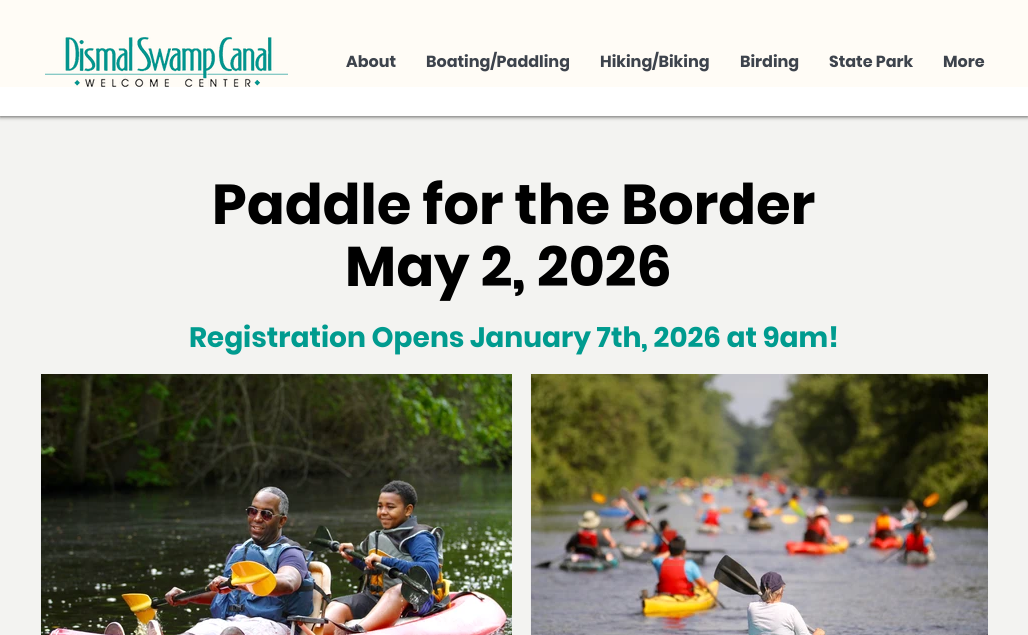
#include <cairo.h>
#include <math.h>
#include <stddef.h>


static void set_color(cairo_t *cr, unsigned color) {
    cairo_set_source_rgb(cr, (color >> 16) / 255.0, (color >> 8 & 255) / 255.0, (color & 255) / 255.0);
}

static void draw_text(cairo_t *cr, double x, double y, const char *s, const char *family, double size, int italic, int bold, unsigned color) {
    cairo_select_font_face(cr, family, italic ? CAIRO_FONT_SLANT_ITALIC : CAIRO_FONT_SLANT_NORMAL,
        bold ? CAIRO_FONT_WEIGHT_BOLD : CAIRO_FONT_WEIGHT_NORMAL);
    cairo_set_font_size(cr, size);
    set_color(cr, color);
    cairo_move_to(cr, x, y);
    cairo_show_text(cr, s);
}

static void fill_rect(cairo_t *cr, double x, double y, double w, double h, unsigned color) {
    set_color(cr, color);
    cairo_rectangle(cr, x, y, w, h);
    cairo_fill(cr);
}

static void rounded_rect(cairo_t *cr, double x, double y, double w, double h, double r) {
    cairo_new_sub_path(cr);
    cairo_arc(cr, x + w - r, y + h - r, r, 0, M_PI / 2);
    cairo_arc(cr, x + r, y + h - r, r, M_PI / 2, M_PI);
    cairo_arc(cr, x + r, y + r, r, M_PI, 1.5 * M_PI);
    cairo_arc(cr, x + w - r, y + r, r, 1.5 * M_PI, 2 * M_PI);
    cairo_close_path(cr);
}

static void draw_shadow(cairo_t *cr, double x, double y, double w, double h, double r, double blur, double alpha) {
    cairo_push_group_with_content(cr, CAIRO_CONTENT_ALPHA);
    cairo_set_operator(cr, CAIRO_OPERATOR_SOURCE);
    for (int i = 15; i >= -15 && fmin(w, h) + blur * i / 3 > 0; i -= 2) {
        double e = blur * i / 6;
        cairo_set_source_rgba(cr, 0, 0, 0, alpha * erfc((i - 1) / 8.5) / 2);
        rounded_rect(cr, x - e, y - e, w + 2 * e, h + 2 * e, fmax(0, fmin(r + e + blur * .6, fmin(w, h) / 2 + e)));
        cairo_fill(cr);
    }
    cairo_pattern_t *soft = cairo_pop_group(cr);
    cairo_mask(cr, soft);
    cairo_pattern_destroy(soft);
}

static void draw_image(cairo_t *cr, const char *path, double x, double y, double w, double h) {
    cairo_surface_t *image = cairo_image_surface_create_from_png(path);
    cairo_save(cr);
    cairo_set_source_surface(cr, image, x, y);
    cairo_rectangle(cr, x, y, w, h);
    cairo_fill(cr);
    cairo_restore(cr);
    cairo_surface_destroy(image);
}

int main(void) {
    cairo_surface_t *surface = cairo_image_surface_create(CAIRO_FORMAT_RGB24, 1028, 635);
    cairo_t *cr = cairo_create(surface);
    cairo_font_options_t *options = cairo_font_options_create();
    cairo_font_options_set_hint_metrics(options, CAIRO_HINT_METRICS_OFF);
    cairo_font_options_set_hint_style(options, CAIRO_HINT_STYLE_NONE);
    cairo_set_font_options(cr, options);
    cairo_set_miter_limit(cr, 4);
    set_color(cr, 0xF3F3F1);
    cairo_paint(cr);
    set_color(cr, 0x000000);
    draw_shadow(cr, 0, 1, 1028, 116, 0, 2, 0.6);
    fill_rect(cr, 0, 87, 1028, 29, 0xFFFFFF);
    fill_rect(cr, 0, 0, 1028, 87, 0xFFFCF6);
    draw_image(cr, "assets/img1.png", 45, 37, 243, 50);
    draw_text(cr, 346, 67, "About", "Poppins", 16, 0, 1, 0x3D434C);
    draw_text(cr, 426, 67, "Boating/Paddling", "Poppins", 16, 0, 1, 0x3D434C);
    draw_text(cr, 600, 67, "Hiking/Biking", "Poppins", 16, 0, 1, 0x3D434C);
    draw_text(cr, 740, 67, "Birding", "Poppins", 16, 0, 1, 0x3D434C);
    draw_text(cr, 829, 67, "State Park", "Poppins", 16, 0, 1, 0x3D434C);
    draw_text(cr, 943, 67, "More", "Poppins", 16, 0, 1, 0x3D434C);
    draw_text(cr, 212, 224, "Paddle for the Border", "Poppins", 56, 0, 1, 0x000000);
    draw_text(cr, 345, 286, "May 2, 2026", "Poppins", 56, 0, 1, 0x000000);
    draw_text(cr, 189, 347, "Registration Opens January 7th, 2026 at 9am!", "Poppins", 28, 0, 1, 0x009B8F);
    fill_rect(cr, 40, 374, 1, 261, 0xF0F0F0);
    draw_image(cr, "assets/img2.png", 41, 374, 471, 261);
    fill_rect(cr, 530, 374, 1, 261, 0xF0F0F0);
    draw_image(cr, "assets/img3.png", 531, 374, 457, 261);
    cairo_surface_write_to_png(surface, "output.png");
    cairo_font_options_destroy(options);
    cairo_destroy(cr);
    cairo_surface_destroy(surface);
    return 0;
}
